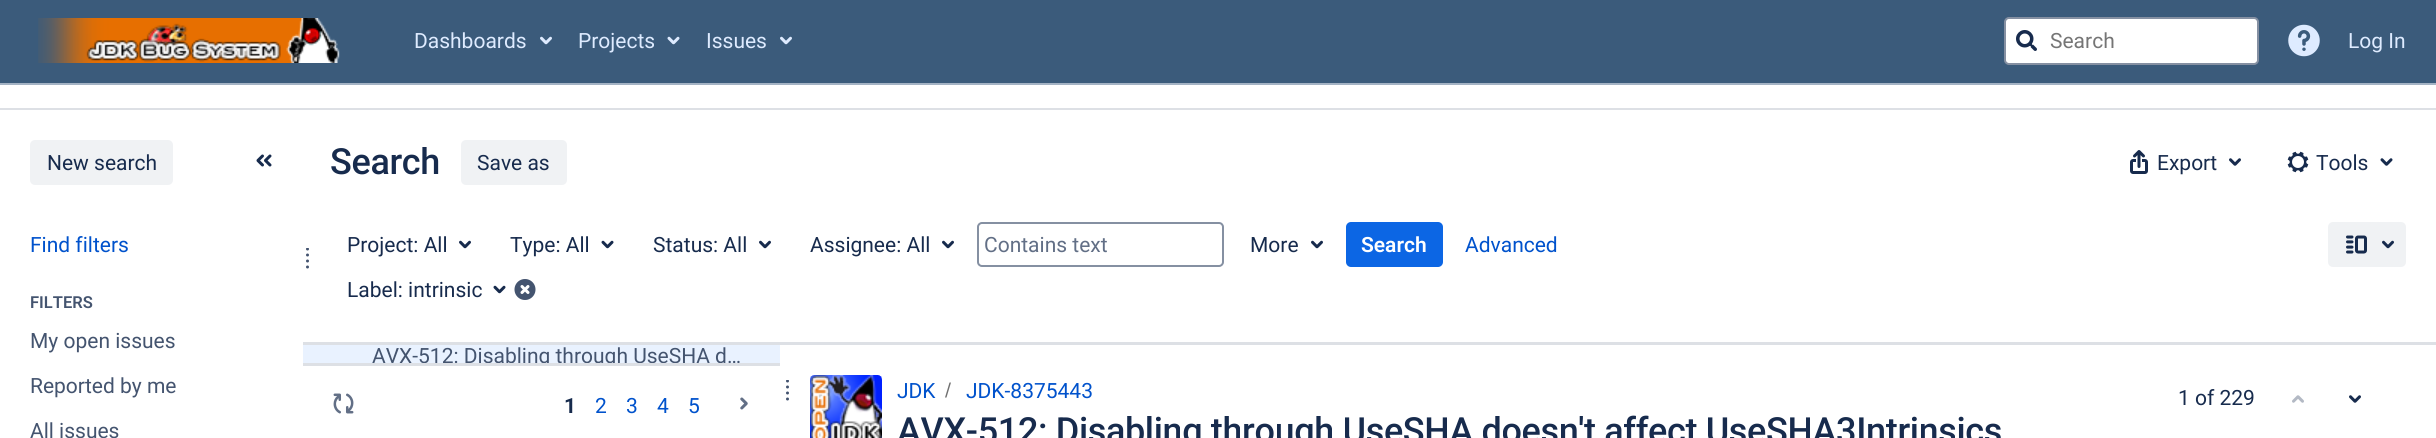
#include <cairo.h>
#include <math.h>
#include <stddef.h>


static void set_color(cairo_t *cr, unsigned color) {
    cairo_set_source_rgb(cr, (color >> 16) / 255.0, (color >> 8 & 255) / 255.0, (color & 255) / 255.0);
}

static void draw_text(cairo_t *cr, double x, double y, const char *s, const char *family, double size, int italic, int bold, unsigned color) {
    cairo_select_font_face(cr, family, italic ? CAIRO_FONT_SLANT_ITALIC : CAIRO_FONT_SLANT_NORMAL,
        bold ? CAIRO_FONT_WEIGHT_BOLD : CAIRO_FONT_WEIGHT_NORMAL);
    cairo_set_font_size(cr, size);
    set_color(cr, color);
    cairo_move_to(cr, x, y);
    cairo_show_text(cr, s);
}

static void draw_spaced(cairo_t *cr, double x, double y, const char *s, double letter, double word) {
    cairo_move_to(cr, x, y);
    while (*s) {
        char ch[5] = {0};
        int n = 0;
        do ch[n++] = *s++; while ((*s & 0xC0) == 0x80);
        cairo_show_text(cr, ch);
        cairo_rel_move_to(cr, letter + word * (*ch == ' '), 0);
    }
}

static void fill_rect(cairo_t *cr, double x, double y, double w, double h, unsigned color) {
    set_color(cr, color);
    cairo_rectangle(cr, x, y, w, h);
    cairo_fill(cr);
}

static void rounded_rect(cairo_t *cr, double x, double y, double w, double h, double r) {
    cairo_new_sub_path(cr);
    cairo_arc(cr, x + w - r, y + h - r, r, 0, M_PI / 2);
    cairo_arc(cr, x + r, y + h - r, r, M_PI / 2, M_PI);
    cairo_arc(cr, x + r, y + r, r, M_PI, 1.5 * M_PI);
    cairo_arc(cr, x + w - r, y + r, r, 1.5 * M_PI, 2 * M_PI);
    cairo_close_path(cr);
}

static void draw_image(cairo_t *cr, const char *path, double x, double y, double w, double h) {
    cairo_surface_t *image = cairo_image_surface_create_from_png(path);
    cairo_save(cr);
    cairo_set_source_surface(cr, image, x, y);
    cairo_rectangle(cr, x, y, w, h);
    cairo_fill(cr);
    cairo_restore(cr);
    cairo_surface_destroy(image);
}

int main(void) {
    cairo_surface_t *surface = cairo_image_surface_create(CAIRO_FORMAT_RGB24, 2436, 438);
    cairo_t *cr = cairo_create(surface);
    cairo_font_options_t *options = cairo_font_options_create();
    cairo_font_options_set_hint_metrics(options, CAIRO_HINT_METRICS_OFF);
    cairo_font_options_set_hint_style(options, CAIRO_HINT_STYLE_NONE);
    cairo_set_font_options(cr, options);
    cairo_set_miter_limit(cr, 4);
    set_color(cr, 0xFFFFFF);
    cairo_paint(cr);
    fill_rect(cr, 0, 0, 2436, 83, 0x3B5B7B);
    fill_rect(cr, 0, 83, 2436, 2, 0xA4B3C4);
    draw_image(cr, "assets/img1.png", 38, 18, 302, 45);
    draw_text(cr, 414, 48, "Dashboards", "Roboto", 21, 0, 0, 0xDEEBFF);
    draw_image(cr, "assets/img2.png", 540, 36, 12, 9);
    draw_text(cr, 578, 48, "Projects", "Roboto", 21, 0, 0, 0xDEEBFF);
    draw_image(cr, "assets/img3.png", 667, 36, 13, 9);
    draw_text(cr, 706, 48, "Issues", "Roboto", 21, 0, 0, 0xDEEBFF);
    draw_image(cr, "assets/img2.png", 780, 36, 12, 9);
    set_color(cr, 0xFFFFFF);
    rounded_rect(cr, 2005, 18, 253, 46, 4);
    cairo_fill_preserve(cr);
    set_color(cr, 0x8590A2);
    cairo_stroke(cr);
    draw_image(cr, "assets/img4.png", 2016, 30, 21, 21);
    draw_text(cr, 2050, 48, "Search", "Roboto", 21, 0, 0, 0x757575);
    draw_image(cr, "assets/img5.png", 2288, 24, 32, 33);
    draw_text(cr, 2348, 48, "Log In", "Roboto", 21, 0, 0, 0xDEEBFF);
    fill_rect(cr, 0, 108, 2436, 2, 0xDDE0E5);
    set_color(cr, 0xF0F2F4);
    rounded_rect(cr, 30, 140, 143, 45, 5);
    cairo_fill(cr);
    draw_text(cr, 47, 170, "New search", "Roboto", 21, 0, 0, 0x172B4D);
    draw_image(cr, "assets/img6.png", 256, 154, 16, 13);
    draw_text(cr, 30, 252, "Find filters", "Roboto", 21, 0, 0, 0x0052CC);
    draw_text(cr, 30, 308, "FILTERS", "Roboto SemiBold", 16.5, 0, 0, 0x44546F);
    draw_text(cr, 30, 348, "My open issues", "Roboto", 21, 0, 0, 0x44546F);
    draw_text(cr, 30, 393, "Reported by me", "Roboto", 21, 0, 0, 0x44546F);
    draw_text(cr, 30, 438, "All issues", "Roboto", 21, 0, 0, 0x44546F);
    fill_rect(cr, 300, 342, 2136, 3, 0xDDE0E5);
    fill_rect(cr, 300, 363, 480, 3, 0xDDE0E5);
    fill_rect(cr, 300, 342, 3, 24, 0xFFFFFF);
    cairo_save(cr);
    cairo_rectangle(cr, 306, 248, 3, 21);
    cairo_clip(cr);
    set_color(cr, 0x42526E);
    cairo_arc(cr, 307.5, 249, 1.5, 0, 2 * M_PI);
    cairo_fill(cr);
    cairo_restore(cr);
    set_color(cr, 0x42526E);
    cairo_arc(cr, 307.5, 255, 1.5, 0, 2 * M_PI);
    cairo_fill(cr);
    cairo_arc(cr, 307.5, 261, 1.5, 0, 2 * M_PI);
    cairo_fill(cr);
    cairo_arc(cr, 307.5, 267, 1.5, 0, 2 * M_PI);
    cairo_fill(cr);
    cairo_select_font_face(cr, "Roboto Medium", CAIRO_FONT_SLANT_NORMAL, CAIRO_FONT_WEIGHT_NORMAL);
    cairo_set_font_size(cr, 36);
    set_color(cr, 0x172B4D);
    draw_spaced(cr, 330, 174, "Search", -0.35, 0);
    set_color(cr, 0xF0F2F4);
    rounded_rect(cr, 461, 140, 106, 45, 5);
    cairo_fill(cr);
    draw_text(cr, 477, 170, "Save as", "Roboto", 21, 0, 0, 0x172B4D);
    draw_image(cr, "assets/img7.png", 2130, 150, 18, 24);
    draw_text(cr, 2157, 170, "Export", "Roboto", 21, 0, 0, 0x172B4D);
    draw_image(cr, "assets/img8.png", 2229, 158, 12, 8);
    draw_image(cr, "assets/img9.png", 2287, 151, 22, 22);
    draw_text(cr, 2316, 170, "Tools", "Roboto", 21, 0, 0, 0x172B4D);
    draw_image(cr, "assets/img10.png", 2380, 158, 13, 8);
    draw_text(cr, 347, 252, "Project: All", "Roboto", 21, 0, 0, 0x172B4D);
    draw_image(cr, "assets/img11.png", 459, 240, 12, 9);
    draw_text(cr, 510, 252, "Type: All", "Roboto", 21, 0, 0, 0x172B4D);
    draw_image(cr, "assets/img12.png", 601, 240, 13, 9);
    draw_text(cr, 653, 252, "Status: All", "Roboto", 21, 0, 0, 0x172B4D);
    draw_image(cr, "assets/img11.png", 759, 240, 12, 9);
    draw_text(cr, 810, 252, "Assignee: All", "Roboto", 21, 0, 0, 0x172B4D);
    draw_image(cr, "assets/img11.png", 942, 240, 12, 9);
    rounded_rect(cr, 978, 223, 245, 43, 4);
    set_color(cr, 0x8590A2);
    cairo_stroke(cr);
    draw_text(cr, 984, 252, "Contains text", "Roboto", 21, 0, 0, 0x626F86);
    draw_text(cr, 1250, 252, "More", "Roboto", 21, 0, 0, 0x172B4D);
    draw_image(cr, "assets/img11.png", 1311, 240, 12, 9);
    set_color(cr, 0x0C66E4);
    rounded_rect(cr, 1346, 222, 97, 45, 5);
    cairo_fill(cr);
    draw_text(cr, 1361, 252, "Search", "Roboto SemiBold", 21, 0, 0, 0xFFFFFF);
    draw_text(cr, 347, 297, "Label: intrinsic", "Roboto", 21, 0, 0, 0x172B4D);
    draw_image(cr, "assets/img12.png", 493, 285, 13, 9);
    draw_image(cr, "assets/img13.png", 514, 279, 22, 21);
    draw_text(cr, 1465, 252, "Advanced", "Roboto", 21, 0, 0, 0x0052CC);
    set_color(cr, 0xF0F2F4);
    rounded_rect(cr, 2328, 222, 78, 45, 5);
    cairo_fill(cr);
    draw_image(cr, "assets/img14.png", 2346, 235, 21, 19);
    draw_image(cr, "assets/img15.png", 2382, 240, 12, 9);
    fill_rect(cr, 303, 345, 477, 18, 0xE9F2FF);
    cairo_save(cr);
    cairo_rectangle(cr, 372, 345, 378, 18);
    cairo_clip(cr);
    draw_text(cr, 372, 363, "AVX-512: Disabling through UseSHA d…", "Roboto", 21, 0, 0, 0x44546F);
    cairo_restore(cr);
    draw_image(cr, "assets/img16.png", 333, 393, 21, 21);
    draw_text(cr, 564, 413, "1", "Roboto", 21, 0, 1, 0x172B4D);
    draw_text(cr, 595, 413, "2", "Roboto", 21, 0, 0, 0x0052CC);
    draw_text(cr, 626, 413, "3", "Roboto", 21, 0, 0, 0x0052CC);
    draw_text(cr, 657, 413, "4", "Roboto", 21, 0, 0, 0x0052CC);
    draw_text(cr, 688, 413, "5", "Roboto", 21, 0, 0, 0x0052CC);
    draw_image(cr, "assets/img17.png", 740, 397, 8, 13);
    cairo_save(cr);
    cairo_rectangle(cr, 786, 380, 3, 21);
    cairo_clip(cr);
    set_color(cr, 0x42526E);
    cairo_arc(cr, 787.5, 381, 1.5, 0, 2 * M_PI);
    cairo_fill(cr);
    cairo_restore(cr);
    set_color(cr, 0x42526E);
    cairo_arc(cr, 787.5, 387, 1.5, 0, 2 * M_PI);
    cairo_fill(cr);
    cairo_arc(cr, 787.5, 393, 1.5, 0, 2 * M_PI);
    cairo_fill(cr);
    cairo_arc(cr, 787.5, 399, 1.5, 0, 2 * M_PI);
    cairo_fill(cr);
    draw_image(cr, "assets/img18.png", 810, 375, 72, 63);
    draw_text(cr, 897, 398, "JDK", "Roboto", 21, 0, 0, 0x0052CC);
    set_color(cr, 0x707070);
    cairo_new_path(cr);
    cairo_move_to(cr, 946.5, 397.5);
    cairo_line_to(cr, 951, 382.5);
    cairo_line_to(cr, 949.5, 382.5);
    cairo_line_to(cr, 945, 397.5);
    cairo_close_path(cr);
    cairo_fill(cr);
    draw_text(cr, 966, 398, "JDK-8375443", "Roboto", 21, 0, 0, 0x0052CC);
    cairo_select_font_face(cr, "Roboto Medium", CAIRO_FONT_SLANT_NORMAL, CAIRO_FONT_WEIGHT_NORMAL);
    cairo_set_font_size(cr, 36);
    set_color(cr, 0x172B4D);
    draw_spaced(cr, 897, 443, "AVX-512: Disabling through UseSHA doesn't affect UseSHA3Intrinsics", -0.35, 0);
    draw_text(cr, 2178, 405, "1 of 229", "Roboto", 21, 0, 0, 0x172B4D);
    draw_image(cr, "assets/img19.png", 2292, 395, 12, 8);
    draw_image(cr, "assets/img8.png", 2349, 395, 12, 8);
    cairo_surface_write_to_png(surface, "output.png");
    cairo_font_options_destroy(options);
    cairo_destroy(cr);
    cairo_surface_destroy(surface);
    return 0;
}
